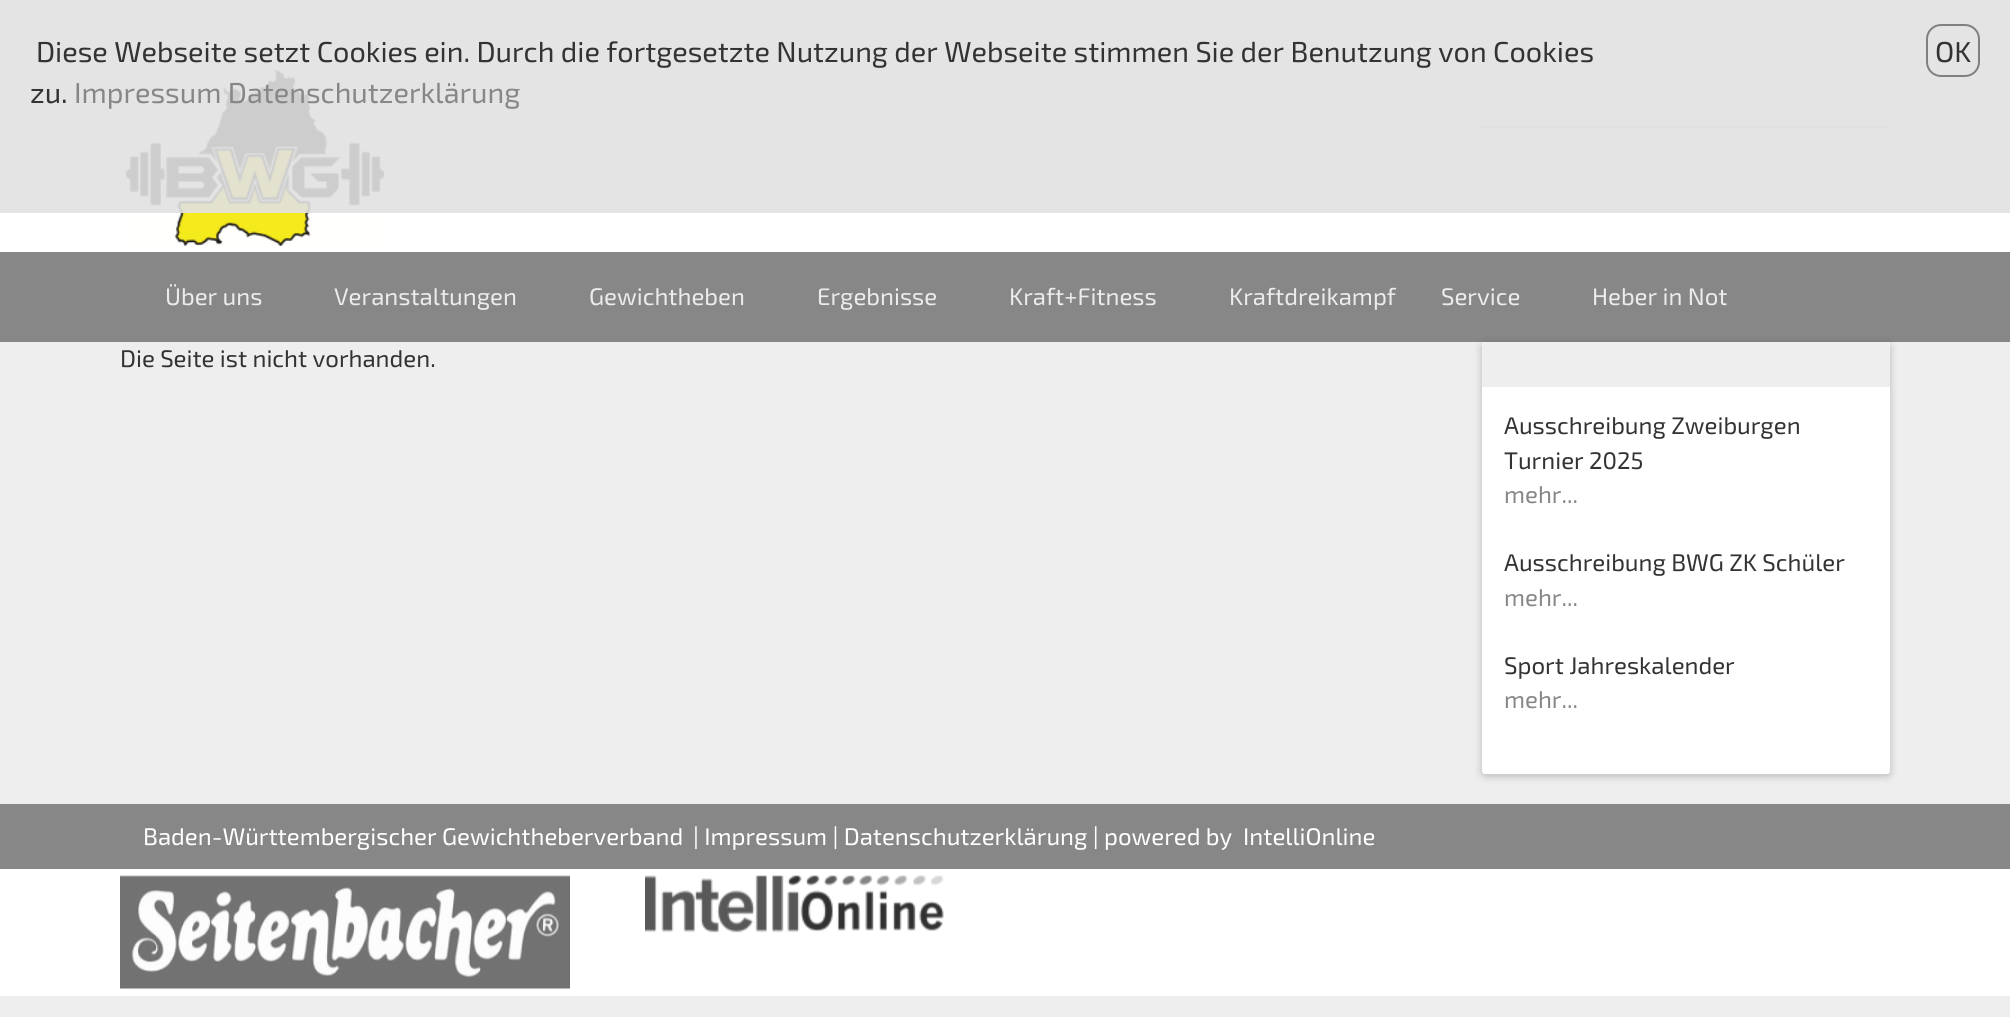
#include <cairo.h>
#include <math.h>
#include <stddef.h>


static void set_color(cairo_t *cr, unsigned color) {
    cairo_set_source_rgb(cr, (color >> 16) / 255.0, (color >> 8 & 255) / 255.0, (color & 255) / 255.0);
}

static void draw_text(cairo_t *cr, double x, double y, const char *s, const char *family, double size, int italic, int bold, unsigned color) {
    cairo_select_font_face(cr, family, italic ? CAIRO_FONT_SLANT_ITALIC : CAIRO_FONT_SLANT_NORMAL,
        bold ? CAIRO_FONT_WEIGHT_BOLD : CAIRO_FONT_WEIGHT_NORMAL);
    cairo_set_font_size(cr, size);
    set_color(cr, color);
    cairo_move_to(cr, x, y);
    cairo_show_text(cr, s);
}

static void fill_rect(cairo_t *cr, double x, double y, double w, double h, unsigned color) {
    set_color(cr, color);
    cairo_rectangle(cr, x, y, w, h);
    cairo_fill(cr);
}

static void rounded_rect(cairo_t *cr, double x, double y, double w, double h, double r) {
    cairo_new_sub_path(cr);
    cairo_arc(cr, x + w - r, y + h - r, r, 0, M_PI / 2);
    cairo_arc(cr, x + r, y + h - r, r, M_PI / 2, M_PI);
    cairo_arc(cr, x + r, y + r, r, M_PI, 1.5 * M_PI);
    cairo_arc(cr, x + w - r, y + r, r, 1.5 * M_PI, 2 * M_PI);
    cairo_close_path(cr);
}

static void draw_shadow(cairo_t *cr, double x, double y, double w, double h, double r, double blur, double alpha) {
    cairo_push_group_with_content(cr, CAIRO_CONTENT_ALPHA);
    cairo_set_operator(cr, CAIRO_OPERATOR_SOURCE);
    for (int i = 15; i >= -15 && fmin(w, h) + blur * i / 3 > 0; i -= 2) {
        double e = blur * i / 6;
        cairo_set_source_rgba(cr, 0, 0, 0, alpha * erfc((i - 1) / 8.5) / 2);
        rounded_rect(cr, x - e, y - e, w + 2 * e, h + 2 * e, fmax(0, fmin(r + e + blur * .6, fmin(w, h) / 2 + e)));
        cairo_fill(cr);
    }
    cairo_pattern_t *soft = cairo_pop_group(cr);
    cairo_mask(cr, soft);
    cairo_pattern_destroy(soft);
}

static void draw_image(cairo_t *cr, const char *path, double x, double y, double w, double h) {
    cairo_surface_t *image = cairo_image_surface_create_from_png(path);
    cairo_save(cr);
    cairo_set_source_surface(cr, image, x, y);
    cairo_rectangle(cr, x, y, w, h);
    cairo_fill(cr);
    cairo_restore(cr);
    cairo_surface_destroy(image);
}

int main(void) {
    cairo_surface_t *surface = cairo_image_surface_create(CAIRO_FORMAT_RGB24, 2010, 1017);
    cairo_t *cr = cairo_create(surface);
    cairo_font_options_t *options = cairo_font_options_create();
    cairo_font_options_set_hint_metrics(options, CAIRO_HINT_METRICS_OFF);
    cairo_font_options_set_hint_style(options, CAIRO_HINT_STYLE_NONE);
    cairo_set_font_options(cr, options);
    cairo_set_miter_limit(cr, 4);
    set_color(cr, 0xEEEEEE);
    cairo_paint(cr);
    fill_rect(cr, 0, 0, 2010, 252, 0xFFFFFF);
    draw_image(cr, "assets/img1.png", 126, 70, 258, 176);
    fill_rect(cr, 1481, 126, 409, 2, 0xD2D2D2);
    cairo_set_source_rgba(cr, 0.882, 0.882, 0.882, 0.9);
    cairo_rectangle(cr, 0, 0, 2010, 213);
    cairo_fill(cr);
    draw_text(cr, 36, 62, "Diese Webseite setzt Cookies ein. Durch die fortgesetzte Nutzung der Webseite stimmen Sie der Benutzung von Cookies", "Exo 2", 28.8, 0, 0, 0x333333);
    draw_text(cr, 30, 103, "zu.", "Exo 2", 28.8, 0, 0, 0x333333);
    draw_text(cr, 74, 103, "Impressum Datenschutzerklärung", "Exo 2", 28.8, 0, 0, 0x878787);
    rounded_rect(cr, 1927, 25, 52, 51, 14);
    set_color(cr, 0x808080);
    cairo_stroke(cr);
    draw_text(cr, 1935, 62, "OK", "Exo 2", 28.8, 0, 0, 0x333333);
    fill_rect(cr, 0, 252, 2010, 90, 0x878787);
    draw_text(cr, 165, 305, "Über uns", "Exo 2", 24, 0, 0, 0xECECEC);
    draw_text(cr, 334, 305, "Veranstaltungen", "Exo 2", 24, 0, 0, 0xECECEC);
    draw_text(cr, 589, 305, "Gewichtheben", "Exo 2", 24, 0, 0, 0xECECEC);
    draw_text(cr, 817, 305, "Ergebnisse", "Exo 2", 24, 0, 0, 0xECECEC);
    draw_text(cr, 1009, 305, "Kraft+Fitness", "Exo 2", 24, 0, 0, 0xECECEC);
    draw_text(cr, 1229, 305, "Kraftdreikampf", "Exo 2", 24, 0, 0, 0xECECEC);
    draw_text(cr, 1441, 305, "Service", "Exo 2", 24, 0, 0, 0xECECEC);
    draw_text(cr, 1592, 305, "Heber in Not", "Exo 2", 24, 0, 0, 0xECECEC);
    draw_text(cr, 120, 367, "Die Seite ist nicht vorhanden.", "Exo 2", 24, 0, 0, 0x333333);
    set_color(cr, 0x000000);
    draw_shadow(cr, 1482, 344, 408, 432, 3, 4.5, 0.12);
    draw_shadow(cr, 1482, 344, 408, 432, 3, 4.5, 0.12);
    set_color(cr, 0xFFFFFF);
    rounded_rect(cr, 1482, 342, 408, 432, 3);
    cairo_fill(cr);
    set_color(cr, 0xEEEEEE);
    cairo_new_path(cr);
    cairo_move_to(cr, 1487, 342);
    cairo_line_to(cr, 1885, 342);
    cairo_curve_to(cr, 1888, 342, 1890, 344, 1890, 347);
    cairo_line_to(cr, 1890, 387);
    cairo_line_to(cr, 1482, 387);
    cairo_line_to(cr, 1482, 347);
    cairo_curve_to(cr, 1482, 344, 1484, 342, 1487, 342);
    cairo_close_path(cr);
    cairo_fill(cr);
    draw_text(cr, 1504, 434, "Ausschreibung Zweiburgen", "Exo 2", 24, 0, 0, 0x333333);
    draw_text(cr, 1504, 469, "Turnier 2025", "Exo 2", 24, 0, 0, 0x333333);
    draw_text(cr, 1504, 503, "mehr...", "Exo 2", 24, 0, 0, 0x878787);
    draw_text(cr, 1504, 571, "Ausschreibung BWG ZK Schüler", "Exo 2", 24, 0, 0, 0x333333);
    draw_text(cr, 1504, 606, "mehr...", "Exo 2", 24, 0, 0, 0x878787);
    draw_text(cr, 1504, 674, "Sport Jahreskalender", "Exo 2", 24, 0, 0, 0x333333);
    draw_text(cr, 1504, 708, "mehr...", "Exo 2", 24, 0, 0, 0x878787);
    fill_rect(cr, 0, 869, 2010, 127, 0xFFFFFF);
    fill_rect(cr, 0, 804, 2010, 65, 0x878787);
    draw_text(cr, 143, 845, "Baden-Württembergischer Gewichtheberverband", "Exo 2", 24, 0, 0, 0xFFFFFF);
    draw_text(cr, 693, 845, "| Impressum | Datenschutzerklärung | powered by", "Exo 2", 24, 0, 0, 0xFFFFFF);
    draw_text(cr, 1243, 845, "IntelliOnline", "Exo 2", 24, 0, 0, 0xFFFFFF);
    draw_image(cr, "assets/img2.png", 120, 875, 450, 114);
    draw_image(cr, "assets/img3.png", 645, 875, 299, 58);
    cairo_surface_write_to_png(surface, "output.png");
    cairo_font_options_destroy(options);
    cairo_destroy(cr);
    cairo_surface_destroy(surface);
    return 0;
}
